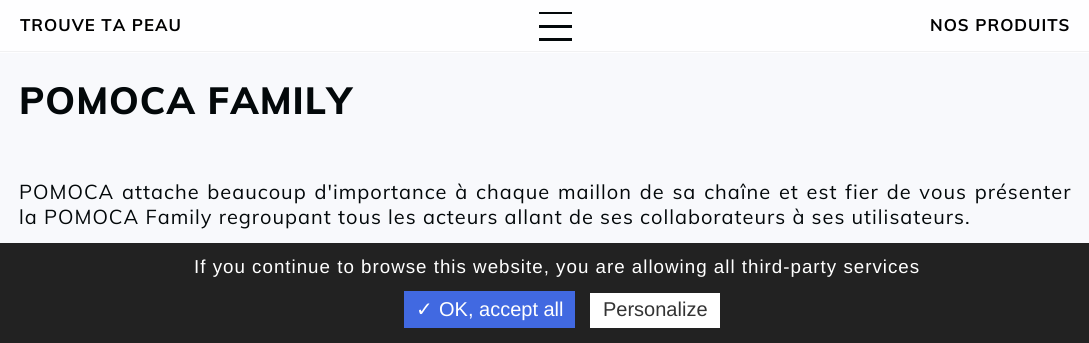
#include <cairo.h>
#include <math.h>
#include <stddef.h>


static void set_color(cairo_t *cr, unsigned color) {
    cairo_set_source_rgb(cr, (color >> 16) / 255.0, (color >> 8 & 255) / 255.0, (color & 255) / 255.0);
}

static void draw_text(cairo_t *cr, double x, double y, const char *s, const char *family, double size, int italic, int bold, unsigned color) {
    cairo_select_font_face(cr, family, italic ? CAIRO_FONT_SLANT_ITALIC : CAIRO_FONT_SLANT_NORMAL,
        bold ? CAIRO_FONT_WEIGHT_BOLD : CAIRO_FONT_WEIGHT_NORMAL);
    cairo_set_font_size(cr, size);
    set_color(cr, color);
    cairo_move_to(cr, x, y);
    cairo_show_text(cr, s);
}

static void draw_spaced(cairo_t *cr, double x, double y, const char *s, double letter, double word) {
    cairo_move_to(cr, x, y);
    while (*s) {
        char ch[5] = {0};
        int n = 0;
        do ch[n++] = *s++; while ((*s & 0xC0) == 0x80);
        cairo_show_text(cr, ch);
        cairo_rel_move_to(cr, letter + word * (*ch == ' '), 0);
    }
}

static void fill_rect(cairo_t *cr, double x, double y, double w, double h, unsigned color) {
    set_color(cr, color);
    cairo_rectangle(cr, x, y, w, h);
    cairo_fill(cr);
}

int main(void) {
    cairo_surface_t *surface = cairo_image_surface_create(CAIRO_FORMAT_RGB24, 1089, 343);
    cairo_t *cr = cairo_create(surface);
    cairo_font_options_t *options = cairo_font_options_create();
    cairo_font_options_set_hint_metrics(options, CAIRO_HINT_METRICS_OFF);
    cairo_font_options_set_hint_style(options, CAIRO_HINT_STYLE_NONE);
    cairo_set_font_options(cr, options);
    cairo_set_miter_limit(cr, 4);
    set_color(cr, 0xF8F9FC);
    cairo_paint(cr);
    fill_rect(cr, 0, 0, 1089, 53, 0xFEFEFF);
    fill_rect(cr, 0, 51, 1089, 1, 0xF1F1F2);
    cairo_select_font_face(cr, "Muli", CAIRO_FONT_SLANT_NORMAL, CAIRO_FONT_WEIGHT_BOLD);
    cairo_set_font_size(cr, 16.75);
    set_color(cr, 0x000000);
    draw_spaced(cr, 20, 31, "TROUVE TA PEAU", 1, 0);
    fill_rect(cr, 539, 12, 33, 2, 0x03080A);
    fill_rect(cr, 539, 25, 33, 3, 0x03080A);
    fill_rect(cr, 539, 38, 33, 3, 0x03080A);
    set_color(cr, 0x000000);
    draw_spaced(cr, 930, 31, "NOS PRODUITS", 1, 0);
    cairo_select_font_face(cr, "Muli ExtraBold", CAIRO_FONT_SLANT_NORMAL, CAIRO_FONT_WEIGHT_NORMAL);
    cairo_set_font_size(cr, 37.5);
    set_color(cr, 0x03080A);
    draw_spaced(cr, 19, 114, "POMOCA FAMILY", 1, 0);
    cairo_select_font_face(cr, "Muli", CAIRO_FONT_SLANT_NORMAL, CAIRO_FONT_WEIGHT_NORMAL);
    cairo_set_font_size(cr, 20);
    draw_spaced(cr, 19, 199, "POMOCA attache beaucoup d'importance à chaque maillon de sa chaîne et est fier de vous présenter", 1, 1.6);
    draw_spaced(cr, 19, 224, "la POMOCA Family regroupant tous les acteurs allant de ses collaborateurs à ses utilisateurs.", 1, 0);
    fill_rect(cr, 0, 243, 1089, 100, 0x222222);
    cairo_select_font_face(cr, "Liberation Sans", CAIRO_FONT_SLANT_NORMAL, CAIRO_FONT_WEIGHT_NORMAL);
    cairo_set_font_size(cr, 18.75);
    set_color(cr, 0xFFFFFF);
    draw_spaced(cr, 194, 273, "If you continue to browse this website, you are allowing all third-party services", 1, 0);
    fill_rect(cr, 404, 291, 171, 37, 0x4169E1);
    draw_text(cr, 416, 316, "✓", "DejaVu Sans", 20, 0, 0, 0xFFFFFF);
    draw_text(cr, 439, 316, "OK, accept all", "Liberation Sans", 20, 0, 0, 0xFFFFFF);
    fill_rect(cr, 590, 293, 130, 35, 0xFFFFFF);
    draw_text(cr, 603, 316, "Personalize", "Liberation Sans", 20, 0, 0, 0x333333);
    cairo_surface_write_to_png(surface, "output.png");
    cairo_font_options_destroy(options);
    cairo_destroy(cr);
    cairo_surface_destroy(surface);
    return 0;
}
